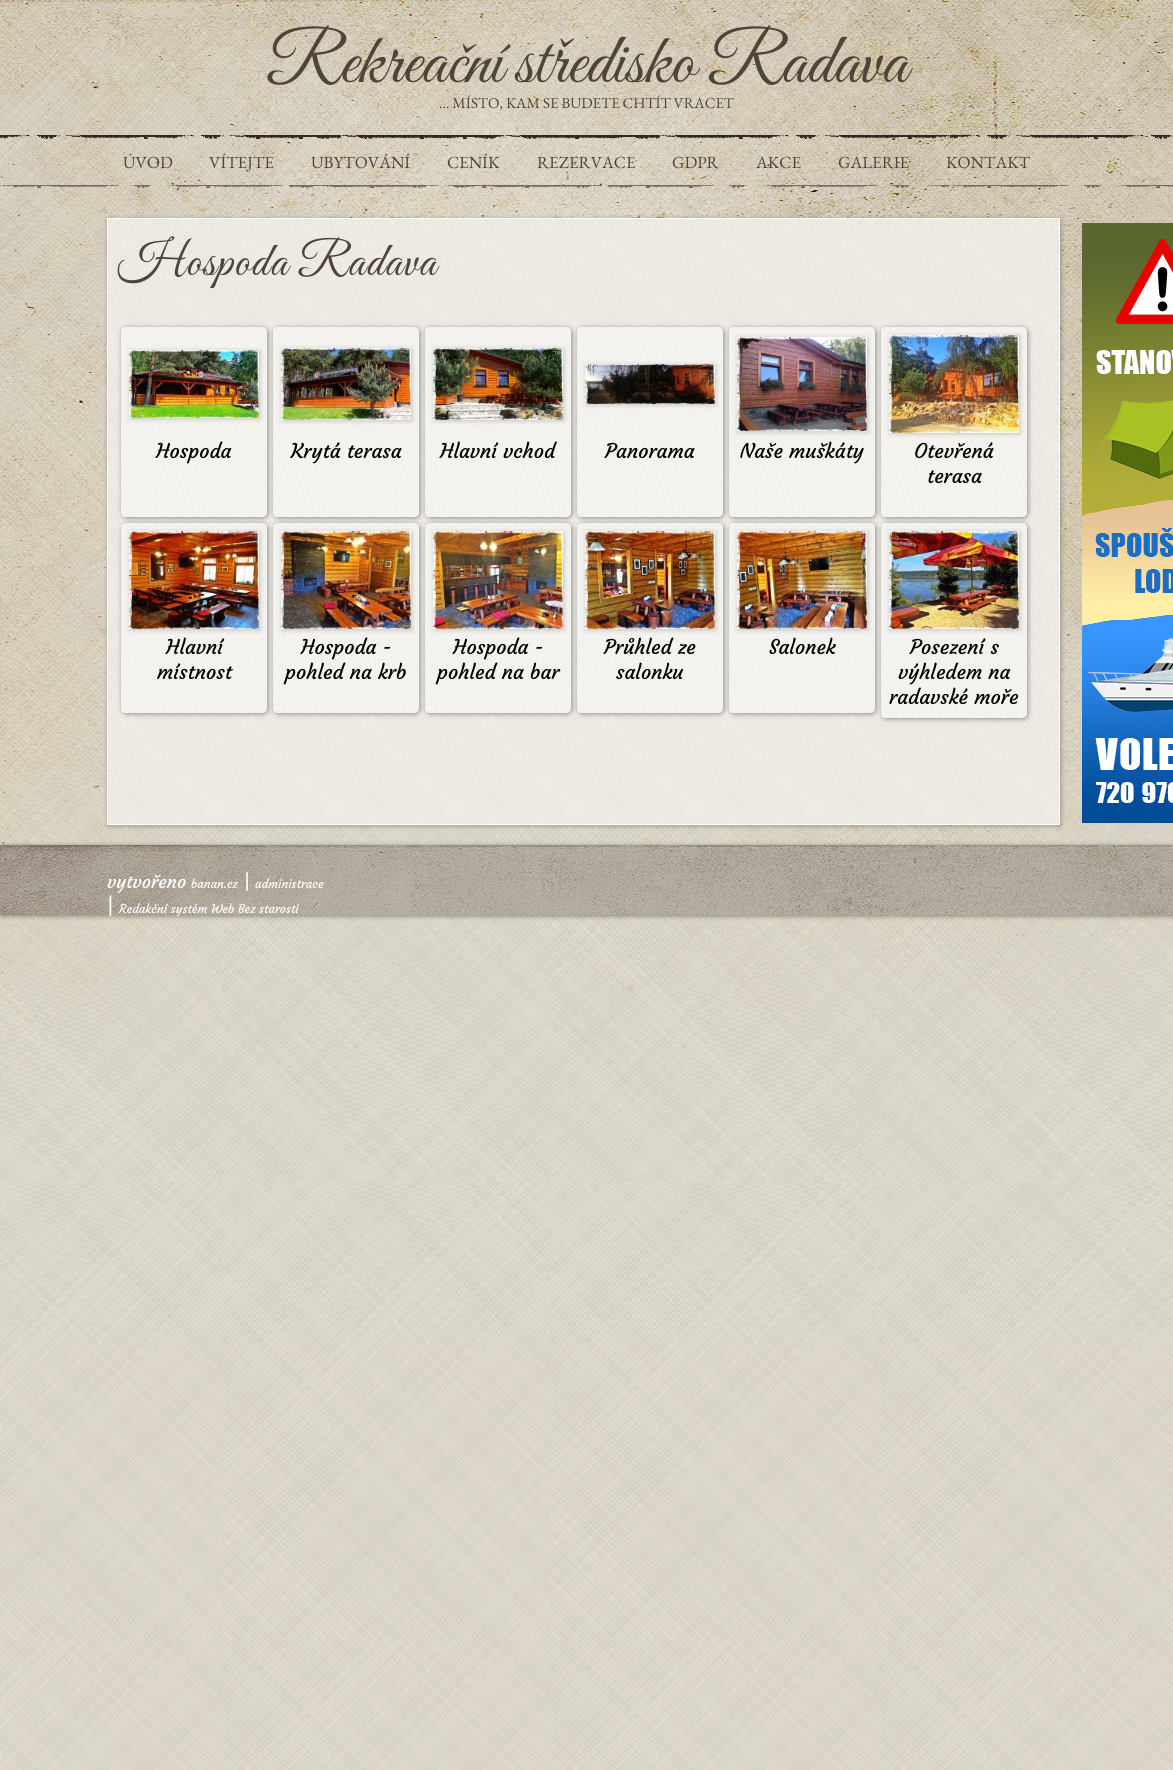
#include <cairo.h>
#include <math.h>
#include <stddef.h>


static void set_color(cairo_t *cr, unsigned color) {
    cairo_set_source_rgb(cr, (color >> 16) / 255.0, (color >> 8 & 255) / 255.0, (color & 255) / 255.0);
}

static void draw_text(cairo_t *cr, double x, double y, const char *s, const char *family, double size, int italic, int bold, unsigned color) {
    cairo_select_font_face(cr, family, italic ? CAIRO_FONT_SLANT_ITALIC : CAIRO_FONT_SLANT_NORMAL,
        bold ? CAIRO_FONT_WEIGHT_BOLD : CAIRO_FONT_WEIGHT_NORMAL);
    cairo_set_font_size(cr, size);
    set_color(cr, color);
    cairo_move_to(cr, x, y);
    cairo_show_text(cr, s);
}

static void draw_spaced(cairo_t *cr, double x, double y, const char *s, double letter, double word) {
    cairo_move_to(cr, x, y);
    while (*s) {
        char ch[5] = {0};
        int n = 0;
        do ch[n++] = *s++; while ((*s & 0xC0) == 0x80);
        cairo_show_text(cr, ch);
        cairo_rel_move_to(cr, letter + word * (*ch == ' '), 0);
    }
}

static void rounded_rect(cairo_t *cr, double x, double y, double w, double h, double r) {
    cairo_new_sub_path(cr);
    cairo_arc(cr, x + w - r, y + h - r, r, 0, M_PI / 2);
    cairo_arc(cr, x + r, y + h - r, r, M_PI / 2, M_PI);
    cairo_arc(cr, x + r, y + r, r, M_PI, 1.5 * M_PI);
    cairo_arc(cr, x + w - r, y + r, r, 1.5 * M_PI, 2 * M_PI);
    cairo_close_path(cr);
}

static void draw_shadow(cairo_t *cr, double x, double y, double w, double h, double r, double blur, double alpha) {
    cairo_push_group_with_content(cr, CAIRO_CONTENT_ALPHA);
    cairo_set_operator(cr, CAIRO_OPERATOR_SOURCE);
    for (int i = 15; i >= -15 && fmin(w, h) + blur * i / 3 > 0; i -= 2) {
        double e = blur * i / 6;
        cairo_set_source_rgba(cr, 0, 0, 0, alpha * erfc((i - 1) / 8.5) / 2);
        rounded_rect(cr, x - e, y - e, w + 2 * e, h + 2 * e, fmax(0, fmin(r + e + blur * .6, fmin(w, h) / 2 + e)));
        cairo_fill(cr);
    }
    cairo_pattern_t *soft = cairo_pop_group(cr);
    cairo_mask(cr, soft);
    cairo_pattern_destroy(soft);
}

static void draw_image(cairo_t *cr, const char *path, double x, double y, double w, double h) {
    cairo_surface_t *image = cairo_image_surface_create_from_png(path);
    cairo_save(cr);
    cairo_set_source_surface(cr, image, x, y);
    cairo_rectangle(cr, x, y, w, h);
    cairo_fill(cr);
    cairo_restore(cr);
    cairo_surface_destroy(image);
}

int main(void) {
    cairo_surface_t *surface = cairo_image_surface_create(CAIRO_FORMAT_RGB24, 1173, 1770);
    cairo_t *cr = cairo_create(surface);
    cairo_font_options_t *options = cairo_font_options_create();
    cairo_font_options_set_hint_metrics(options, CAIRO_HINT_METRICS_OFF);
    cairo_font_options_set_hint_style(options, CAIRO_HINT_STYLE_NONE);
    cairo_set_font_options(cr, options);
    cairo_set_miter_limit(cr, 4);
    set_color(cr, 0xFFFFFF);
    cairo_paint(cr);
    draw_image(cr, "assets/img1.png", 0, 1333, 1173, 437);
    draw_image(cr, "assets/img2.png", 0, 0, 1173, 1333);
    draw_text(cr, 266, 82, "Rekreační středisko Radava", "Great Vibes", 72, 0, 0, 0x4F4439);
    draw_text(cr, 439, 108, "... MÍSTO, KAM SE BUDETE CHTÍT VRACET", "EB Garamond", 15, 0, 0, 0x4F4439);
    draw_image(cr, "assets/img3.png", 0, 135, 1173, 53);
    draw_text(cr, 123, 168, "ÚVOD", "EB Garamond", 17, 0, 0, 0x4F4439);
    draw_text(cr, 209, 168, "VÍTEJTE", "EB Garamond", 17, 0, 0, 0x4F4439);
    draw_text(cr, 311, 168, "UBYTOVÁNÍ", "EB Garamond", 17, 0, 0, 0x4F4439);
    draw_text(cr, 447, 168, "CENÍK", "EB Garamond", 17, 0, 0, 0x4F4439);
    draw_text(cr, 537, 168, "REZERVACE", "EB Garamond", 17, 0, 0, 0x4F4439);
    draw_text(cr, 672, 168, "GDPR", "EB Garamond", 17, 0, 0, 0x4F4439);
    draw_text(cr, 756, 168, "AKCE", "EB Garamond", 17, 0, 0, 0x4F4439);
    draw_text(cr, 838, 168, "GALERIE", "EB Garamond", 17, 0, 0, 0x4F4439);
    draw_text(cr, 946, 168, "KONTAKT", "EB Garamond", 17, 0, 0, 0x4F4439);
    set_color(cr, 0x000000);
    draw_shadow(cr, 108, 219, 953, 607, 0, 2.5, 0.3);
    draw_image(cr, "assets/img4.png", 108, 219, 951, 605);
    cairo_rectangle(cr, 107.5, 218.5, 952, 606);
    set_color(cr, 0xFFFFFF);
    cairo_set_line_width(cr, 1);
    cairo_stroke(cr);
    cairo_select_font_face(cr, "Great Vibes", CAIRO_FONT_SLANT_NORMAL, CAIRO_FONT_WEIGHT_NORMAL);
    cairo_set_font_size(cr, 48);
    set_color(cr, 0x4F4439);
    draw_spaced(cr, 118, 275, "Hospoda Radava", 1, 0);
    cairo_save(cr);
    cairo_set_fill_rule(cr, CAIRO_FILL_RULE_EVEN_ODD);
    cairo_new_path(cr);
    cairo_move_to(cr, 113, 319);
    cairo_line_to(cr, 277, 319);
    cairo_line_to(cr, 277, 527);
    cairo_line_to(cr, 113, 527);
    cairo_close_path(cr);
    cairo_move_to(cr, 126, 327);
    cairo_line_to(cr, 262, 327);
    cairo_curve_to(cr, 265, 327, 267, 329, 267, 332);
    cairo_line_to(cr, 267, 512);
    cairo_curve_to(cr, 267, 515, 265, 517, 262, 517);
    cairo_line_to(cr, 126, 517);
    cairo_curve_to(cr, 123, 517, 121, 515, 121, 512);
    cairo_line_to(cr, 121, 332);
    cairo_curve_to(cr, 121, 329, 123, 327, 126, 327);
    cairo_close_path(cr);
    cairo_clip(cr);
    set_color(cr, 0x000000);
    draw_shadow(cr, 122, 328, 146, 190, 5, 2.5, 0.4);
    cairo_restore(cr);
    cairo_set_source_rgba(cr, 1, 1, 1, 0.4);
    rounded_rect(cr, 121, 327, 146, 190, 5);
    cairo_fill(cr);
    set_color(cr, 0x000000);
    draw_shadow(cr, 130, 351, 130, 68, 0, 2.5, 0.2);
    draw_image(cr, "assets/img5.png", 129, 350, 130, 68);
    draw_text(cr, 156, 458, "Hospoda", "Courgette", 20, 0, 0, 0x000000);
    cairo_save(cr);
    cairo_set_fill_rule(cr, CAIRO_FILL_RULE_EVEN_ODD);
    cairo_new_path(cr);
    cairo_move_to(cr, 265, 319);
    cairo_line_to(cr, 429, 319);
    cairo_line_to(cr, 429, 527);
    cairo_line_to(cr, 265, 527);
    cairo_close_path(cr);
    cairo_move_to(cr, 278, 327);
    cairo_line_to(cr, 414, 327);
    cairo_curve_to(cr, 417, 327, 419, 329, 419, 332);
    cairo_line_to(cr, 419, 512);
    cairo_curve_to(cr, 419, 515, 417, 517, 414, 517);
    cairo_line_to(cr, 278, 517);
    cairo_curve_to(cr, 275, 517, 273, 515, 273, 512);
    cairo_line_to(cr, 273, 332);
    cairo_curve_to(cr, 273, 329, 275, 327, 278, 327);
    cairo_close_path(cr);
    cairo_clip(cr);
    set_color(cr, 0x000000);
    draw_shadow(cr, 274, 328, 146, 190, 5, 2.5, 0.4);
    cairo_restore(cr);
    cairo_set_source_rgba(cr, 1, 1, 1, 0.4);
    rounded_rect(cr, 273, 327, 146, 190, 5);
    cairo_fill(cr);
    set_color(cr, 0x000000);
    draw_shadow(cr, 282, 349, 130, 72, 0, 2.5, 0.2);
    draw_image(cr, "assets/img6.png", 281, 348, 130, 72);
    draw_text(cr, 291, 458, "Krytá terasa", "Courgette", 20, 0, 0, 0x000000);
    cairo_save(cr);
    cairo_set_fill_rule(cr, CAIRO_FILL_RULE_EVEN_ODD);
    cairo_new_path(cr);
    cairo_move_to(cr, 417, 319);
    cairo_line_to(cr, 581, 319);
    cairo_line_to(cr, 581, 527);
    cairo_line_to(cr, 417, 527);
    cairo_close_path(cr);
    cairo_move_to(cr, 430, 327);
    cairo_line_to(cr, 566, 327);
    cairo_curve_to(cr, 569, 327, 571, 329, 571, 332);
    cairo_line_to(cr, 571, 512);
    cairo_curve_to(cr, 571, 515, 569, 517, 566, 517);
    cairo_line_to(cr, 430, 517);
    cairo_curve_to(cr, 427, 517, 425, 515, 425, 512);
    cairo_line_to(cr, 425, 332);
    cairo_curve_to(cr, 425, 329, 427, 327, 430, 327);
    cairo_close_path(cr);
    cairo_clip(cr);
    set_color(cr, 0x000000);
    draw_shadow(cr, 426, 328, 146, 190, 5, 2.5, 0.4);
    cairo_restore(cr);
    cairo_set_source_rgba(cr, 1, 1, 1, 0.4);
    rounded_rect(cr, 425, 327, 146, 190, 5);
    cairo_fill(cr);
    set_color(cr, 0x000000);
    draw_shadow(cr, 434, 349, 130, 72, 0, 2.5, 0.2);
    draw_image(cr, "assets/img7.png", 433, 348, 130, 72);
    draw_text(cr, 440, 458, "Hlavní vchod", "Courgette", 20, 0, 0, 0x000000);
    cairo_save(cr);
    cairo_set_fill_rule(cr, CAIRO_FILL_RULE_EVEN_ODD);
    cairo_new_path(cr);
    cairo_move_to(cr, 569, 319);
    cairo_line_to(cr, 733, 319);
    cairo_line_to(cr, 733, 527);
    cairo_line_to(cr, 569, 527);
    cairo_close_path(cr);
    cairo_move_to(cr, 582, 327);
    cairo_line_to(cr, 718, 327);
    cairo_curve_to(cr, 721, 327, 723, 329, 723, 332);
    cairo_line_to(cr, 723, 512);
    cairo_curve_to(cr, 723, 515, 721, 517, 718, 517);
    cairo_line_to(cr, 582, 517);
    cairo_curve_to(cr, 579, 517, 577, 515, 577, 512);
    cairo_line_to(cr, 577, 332);
    cairo_curve_to(cr, 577, 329, 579, 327, 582, 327);
    cairo_close_path(cr);
    cairo_clip(cr);
    set_color(cr, 0x000000);
    draw_shadow(cr, 578, 328, 146, 190, 5, 2.5, 0.4);
    cairo_restore(cr);
    cairo_set_source_rgba(cr, 1, 1, 1, 0.4);
    rounded_rect(cr, 577, 327, 146, 190, 5);
    cairo_fill(cr);
    set_color(cr, 0x000000);
    draw_shadow(cr, 586, 365, 130, 40, 0, 2.5, 0.2);
    draw_image(cr, "assets/img8.png", 585, 364, 130, 40);
    draw_text(cr, 605, 458, "Panorama", "Courgette", 20, 0, 0, 0x000000);
    cairo_save(cr);
    cairo_set_fill_rule(cr, CAIRO_FILL_RULE_EVEN_ODD);
    cairo_new_path(cr);
    cairo_move_to(cr, 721, 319);
    cairo_line_to(cr, 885, 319);
    cairo_line_to(cr, 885, 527);
    cairo_line_to(cr, 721, 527);
    cairo_close_path(cr);
    cairo_move_to(cr, 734, 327);
    cairo_line_to(cr, 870, 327);
    cairo_curve_to(cr, 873, 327, 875, 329, 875, 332);
    cairo_line_to(cr, 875, 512);
    cairo_curve_to(cr, 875, 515, 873, 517, 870, 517);
    cairo_line_to(cr, 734, 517);
    cairo_curve_to(cr, 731, 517, 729, 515, 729, 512);
    cairo_line_to(cr, 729, 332);
    cairo_curve_to(cr, 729, 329, 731, 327, 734, 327);
    cairo_close_path(cr);
    cairo_clip(cr);
    set_color(cr, 0x000000);
    draw_shadow(cr, 730, 328, 146, 190, 5, 2.5, 0.4);
    cairo_restore(cr);
    cairo_set_source_rgba(cr, 1, 1, 1, 0.4);
    rounded_rect(cr, 729, 327, 146, 190, 5);
    cairo_fill(cr);
    set_color(cr, 0x000000);
    draw_shadow(cr, 738, 338, 130, 94, 0, 2.5, 0.2);
    draw_image(cr, "assets/img9.png", 737, 337, 130, 94);
    draw_text(cr, 740, 458, "Naše muškáty", "Courgette", 20, 0, 0, 0x000000);
    cairo_save(cr);
    cairo_set_fill_rule(cr, CAIRO_FILL_RULE_EVEN_ODD);
    cairo_new_path(cr);
    cairo_move_to(cr, 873, 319);
    cairo_line_to(cr, 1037, 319);
    cairo_line_to(cr, 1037, 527);
    cairo_line_to(cr, 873, 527);
    cairo_close_path(cr);
    cairo_move_to(cr, 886, 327);
    cairo_line_to(cr, 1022, 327);
    cairo_curve_to(cr, 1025, 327, 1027, 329, 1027, 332);
    cairo_line_to(cr, 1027, 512);
    cairo_curve_to(cr, 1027, 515, 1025, 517, 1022, 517);
    cairo_line_to(cr, 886, 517);
    cairo_curve_to(cr, 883, 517, 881, 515, 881, 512);
    cairo_line_to(cr, 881, 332);
    cairo_curve_to(cr, 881, 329, 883, 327, 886, 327);
    cairo_close_path(cr);
    cairo_clip(cr);
    set_color(cr, 0x000000);
    draw_shadow(cr, 882, 328, 146, 190, 5, 2.5, 0.4);
    cairo_restore(cr);
    cairo_set_source_rgba(cr, 1, 1, 1, 0.4);
    rounded_rect(cr, 881, 327, 146, 190, 5);
    cairo_fill(cr);
    set_color(cr, 0x000000);
    draw_shadow(cr, 890, 336, 130, 98, 0, 2.5, 0.2);
    draw_image(cr, "assets/img10.png", 889, 335, 130, 98);
    draw_text(cr, 914, 458, "Otevřená", "Courgette", 20, 0, 0, 0x000000);
    draw_text(cr, 927, 483, "terasa", "Courgette", 20, 0, 0, 0x000000);
    cairo_save(cr);
    cairo_set_fill_rule(cr, CAIRO_FILL_RULE_EVEN_ODD);
    cairo_new_path(cr);
    cairo_move_to(cr, 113, 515);
    cairo_line_to(cr, 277, 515);
    cairo_line_to(cr, 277, 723);
    cairo_line_to(cr, 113, 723);
    cairo_close_path(cr);
    cairo_move_to(cr, 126, 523);
    cairo_line_to(cr, 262, 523);
    cairo_curve_to(cr, 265, 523, 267, 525, 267, 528);
    cairo_line_to(cr, 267, 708);
    cairo_curve_to(cr, 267, 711, 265, 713, 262, 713);
    cairo_line_to(cr, 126, 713);
    cairo_curve_to(cr, 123, 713, 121, 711, 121, 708);
    cairo_line_to(cr, 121, 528);
    cairo_curve_to(cr, 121, 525, 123, 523, 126, 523);
    cairo_close_path(cr);
    cairo_clip(cr);
    set_color(cr, 0x000000);
    draw_shadow(cr, 122, 524, 146, 190, 5, 2.5, 0.4);
    cairo_restore(cr);
    cairo_set_source_rgba(cr, 1, 1, 1, 0.4);
    rounded_rect(cr, 121, 523, 146, 190, 5);
    cairo_fill(cr);
    set_color(cr, 0x000000);
    draw_shadow(cr, 130, 532, 130, 98, 0, 2.5, 0.2);
    draw_image(cr, "assets/img11.png", 129, 531, 130, 98);
    draw_text(cr, 166, 654, "Hlavní", "Courgette", 20, 0, 0, 0x000000);
    draw_text(cr, 157, 679, "místnost", "Courgette", 20, 0, 0, 0x000000);
    cairo_save(cr);
    cairo_set_fill_rule(cr, CAIRO_FILL_RULE_EVEN_ODD);
    cairo_new_path(cr);
    cairo_move_to(cr, 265, 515);
    cairo_line_to(cr, 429, 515);
    cairo_line_to(cr, 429, 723);
    cairo_line_to(cr, 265, 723);
    cairo_close_path(cr);
    cairo_move_to(cr, 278, 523);
    cairo_line_to(cr, 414, 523);
    cairo_curve_to(cr, 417, 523, 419, 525, 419, 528);
    cairo_line_to(cr, 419, 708);
    cairo_curve_to(cr, 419, 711, 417, 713, 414, 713);
    cairo_line_to(cr, 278, 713);
    cairo_curve_to(cr, 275, 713, 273, 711, 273, 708);
    cairo_line_to(cr, 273, 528);
    cairo_curve_to(cr, 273, 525, 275, 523, 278, 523);
    cairo_close_path(cr);
    cairo_clip(cr);
    set_color(cr, 0x000000);
    draw_shadow(cr, 274, 524, 146, 190, 5, 2.5, 0.4);
    cairo_restore(cr);
    cairo_set_source_rgba(cr, 1, 1, 1, 0.4);
    rounded_rect(cr, 273, 523, 146, 190, 5);
    cairo_fill(cr);
    set_color(cr, 0x000000);
    draw_shadow(cr, 282, 532, 130, 98, 0, 2.5, 0.2);
    draw_image(cr, "assets/img12.png", 281, 531, 130, 98);
    draw_text(cr, 301, 654, "Hospoda -", "Courgette", 20, 0, 0, 0x000000);
    draw_text(cr, 285, 679, "pohled na krb", "Courgette", 20, 0, 0, 0x000000);
    cairo_save(cr);
    cairo_set_fill_rule(cr, CAIRO_FILL_RULE_EVEN_ODD);
    cairo_new_path(cr);
    cairo_move_to(cr, 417, 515);
    cairo_line_to(cr, 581, 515);
    cairo_line_to(cr, 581, 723);
    cairo_line_to(cr, 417, 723);
    cairo_close_path(cr);
    cairo_move_to(cr, 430, 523);
    cairo_line_to(cr, 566, 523);
    cairo_curve_to(cr, 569, 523, 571, 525, 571, 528);
    cairo_line_to(cr, 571, 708);
    cairo_curve_to(cr, 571, 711, 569, 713, 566, 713);
    cairo_line_to(cr, 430, 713);
    cairo_curve_to(cr, 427, 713, 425, 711, 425, 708);
    cairo_line_to(cr, 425, 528);
    cairo_curve_to(cr, 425, 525, 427, 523, 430, 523);
    cairo_close_path(cr);
    cairo_clip(cr);
    set_color(cr, 0x000000);
    draw_shadow(cr, 426, 524, 146, 190, 5, 2.5, 0.4);
    cairo_restore(cr);
    cairo_set_source_rgba(cr, 1, 1, 1, 0.4);
    rounded_rect(cr, 425, 523, 146, 190, 5);
    cairo_fill(cr);
    set_color(cr, 0x000000);
    draw_shadow(cr, 434, 532, 130, 98, 0, 2.5, 0.2);
    draw_image(cr, "assets/img13.png", 433, 531, 130, 98);
    draw_text(cr, 453, 654, "Hospoda -", "Courgette", 20, 0, 0, 0x000000);
    draw_text(cr, 437, 679, "pohled na bar", "Courgette", 20, 0, 0, 0x000000);
    cairo_save(cr);
    cairo_set_fill_rule(cr, CAIRO_FILL_RULE_EVEN_ODD);
    cairo_new_path(cr);
    cairo_move_to(cr, 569, 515);
    cairo_line_to(cr, 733, 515);
    cairo_line_to(cr, 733, 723);
    cairo_line_to(cr, 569, 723);
    cairo_close_path(cr);
    cairo_move_to(cr, 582, 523);
    cairo_line_to(cr, 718, 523);
    cairo_curve_to(cr, 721, 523, 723, 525, 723, 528);
    cairo_line_to(cr, 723, 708);
    cairo_curve_to(cr, 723, 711, 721, 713, 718, 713);
    cairo_line_to(cr, 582, 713);
    cairo_curve_to(cr, 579, 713, 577, 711, 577, 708);
    cairo_line_to(cr, 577, 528);
    cairo_curve_to(cr, 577, 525, 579, 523, 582, 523);
    cairo_close_path(cr);
    cairo_clip(cr);
    set_color(cr, 0x000000);
    draw_shadow(cr, 578, 524, 146, 190, 5, 2.5, 0.4);
    cairo_restore(cr);
    cairo_set_source_rgba(cr, 1, 1, 1, 0.4);
    rounded_rect(cr, 577, 523, 146, 190, 5);
    cairo_fill(cr);
    set_color(cr, 0x000000);
    draw_shadow(cr, 586, 532, 130, 98, 0, 2.5, 0.2);
    draw_image(cr, "assets/img14.png", 585, 531, 130, 98);
    draw_text(cr, 604, 654, "Průhled ze", "Courgette", 20, 0, 0, 0x000000);
    draw_text(cr, 616, 679, "salonku", "Courgette", 20, 0, 0, 0x000000);
    cairo_save(cr);
    cairo_set_fill_rule(cr, CAIRO_FILL_RULE_EVEN_ODD);
    cairo_new_path(cr);
    cairo_move_to(cr, 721, 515);
    cairo_line_to(cr, 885, 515);
    cairo_line_to(cr, 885, 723);
    cairo_line_to(cr, 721, 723);
    cairo_close_path(cr);
    cairo_move_to(cr, 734, 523);
    cairo_line_to(cr, 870, 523);
    cairo_curve_to(cr, 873, 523, 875, 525, 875, 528);
    cairo_line_to(cr, 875, 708);
    cairo_curve_to(cr, 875, 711, 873, 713, 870, 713);
    cairo_line_to(cr, 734, 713);
    cairo_curve_to(cr, 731, 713, 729, 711, 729, 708);
    cairo_line_to(cr, 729, 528);
    cairo_curve_to(cr, 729, 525, 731, 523, 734, 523);
    cairo_close_path(cr);
    cairo_clip(cr);
    set_color(cr, 0x000000);
    draw_shadow(cr, 730, 524, 146, 190, 5, 2.5, 0.4);
    cairo_restore(cr);
    cairo_set_source_rgba(cr, 1, 1, 1, 0.4);
    rounded_rect(cr, 729, 523, 146, 190, 5);
    cairo_fill(cr);
    set_color(cr, 0x000000);
    draw_shadow(cr, 738, 532, 130, 98, 0, 2.5, 0.2);
    draw_image(cr, "assets/img15.png", 737, 531, 130, 98);
    draw_text(cr, 769, 654, "Salonek", "Courgette", 20, 0, 0, 0x000000);
    cairo_save(cr);
    cairo_set_fill_rule(cr, CAIRO_FILL_RULE_EVEN_ODD);
    cairo_new_path(cr);
    cairo_move_to(cr, 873, 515);
    cairo_line_to(cr, 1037, 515);
    cairo_line_to(cr, 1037, 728);
    cairo_line_to(cr, 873, 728);
    cairo_close_path(cr);
    cairo_move_to(cr, 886, 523);
    cairo_line_to(cr, 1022, 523);
    cairo_curve_to(cr, 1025, 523, 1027, 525, 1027, 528);
    cairo_line_to(cr, 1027, 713);
    cairo_curve_to(cr, 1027, 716, 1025, 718, 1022, 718);
    cairo_line_to(cr, 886, 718);
    cairo_curve_to(cr, 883, 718, 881, 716, 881, 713);
    cairo_line_to(cr, 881, 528);
    cairo_curve_to(cr, 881, 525, 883, 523, 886, 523);
    cairo_close_path(cr);
    cairo_clip(cr);
    set_color(cr, 0x000000);
    draw_shadow(cr, 882, 524, 146, 195, 5, 2.5, 0.4);
    cairo_restore(cr);
    cairo_set_source_rgba(cr, 1, 1, 1, 0.4);
    rounded_rect(cr, 881, 523, 146, 195, 5);
    cairo_fill(cr);
    set_color(cr, 0x000000);
    draw_shadow(cr, 890, 532, 130, 98, 0, 2.5, 0.2);
    draw_image(cr, "assets/img16.png", 889, 531, 130, 98);
    draw_text(cr, 910, 654, "Posezení s", "Courgette", 20, 0, 0, 0x000000);
    draw_text(cr, 898, 679, "výhledem na", "Courgette", 20, 0, 0, 0x000000);
    draw_text(cr, 889, 704, "radavské moře", "Courgette", 20, 0, 0, 0x000000);
    set_color(cr, 0x000000);
    draw_shadow(cr, 1, 846, 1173, 70, 0, 2.5, 0.4);
    draw_image(cr, "assets/img17.png", 0, 845, 1173, 70);
    draw_image(cr, "assets/img18.png", 1082, 223, 91, 600);
    draw_text(cr, 107, 888, "vytvořeno", "Courgette", 18, 0, 0, 0xFFFFFF);
    draw_text(cr, 191, 888, "banan.cz", "Courgette", 12, 0, 0, 0xFFFFFF);
    draw_text(cr, 244, 888, "|", "Courgette", 18, 0, 0, 0xFFFFFF);
    draw_text(cr, 255, 888, "administrace", "Courgette", 12, 0, 0, 0xFFFFFF);
    draw_text(cr, 107, 913, "|", "Courgette", 20, 0, 0, 0xFFFFFF);
    draw_text(cr, 119, 913, "Redakční systém Web Bez starosti", "Courgette", 12, 0, 0, 0xFFFFFF);
    cairo_surface_write_to_png(surface, "output.png");
    cairo_font_options_destroy(options);
    cairo_destroy(cr);
    cairo_surface_destroy(surface);
    return 0;
}
